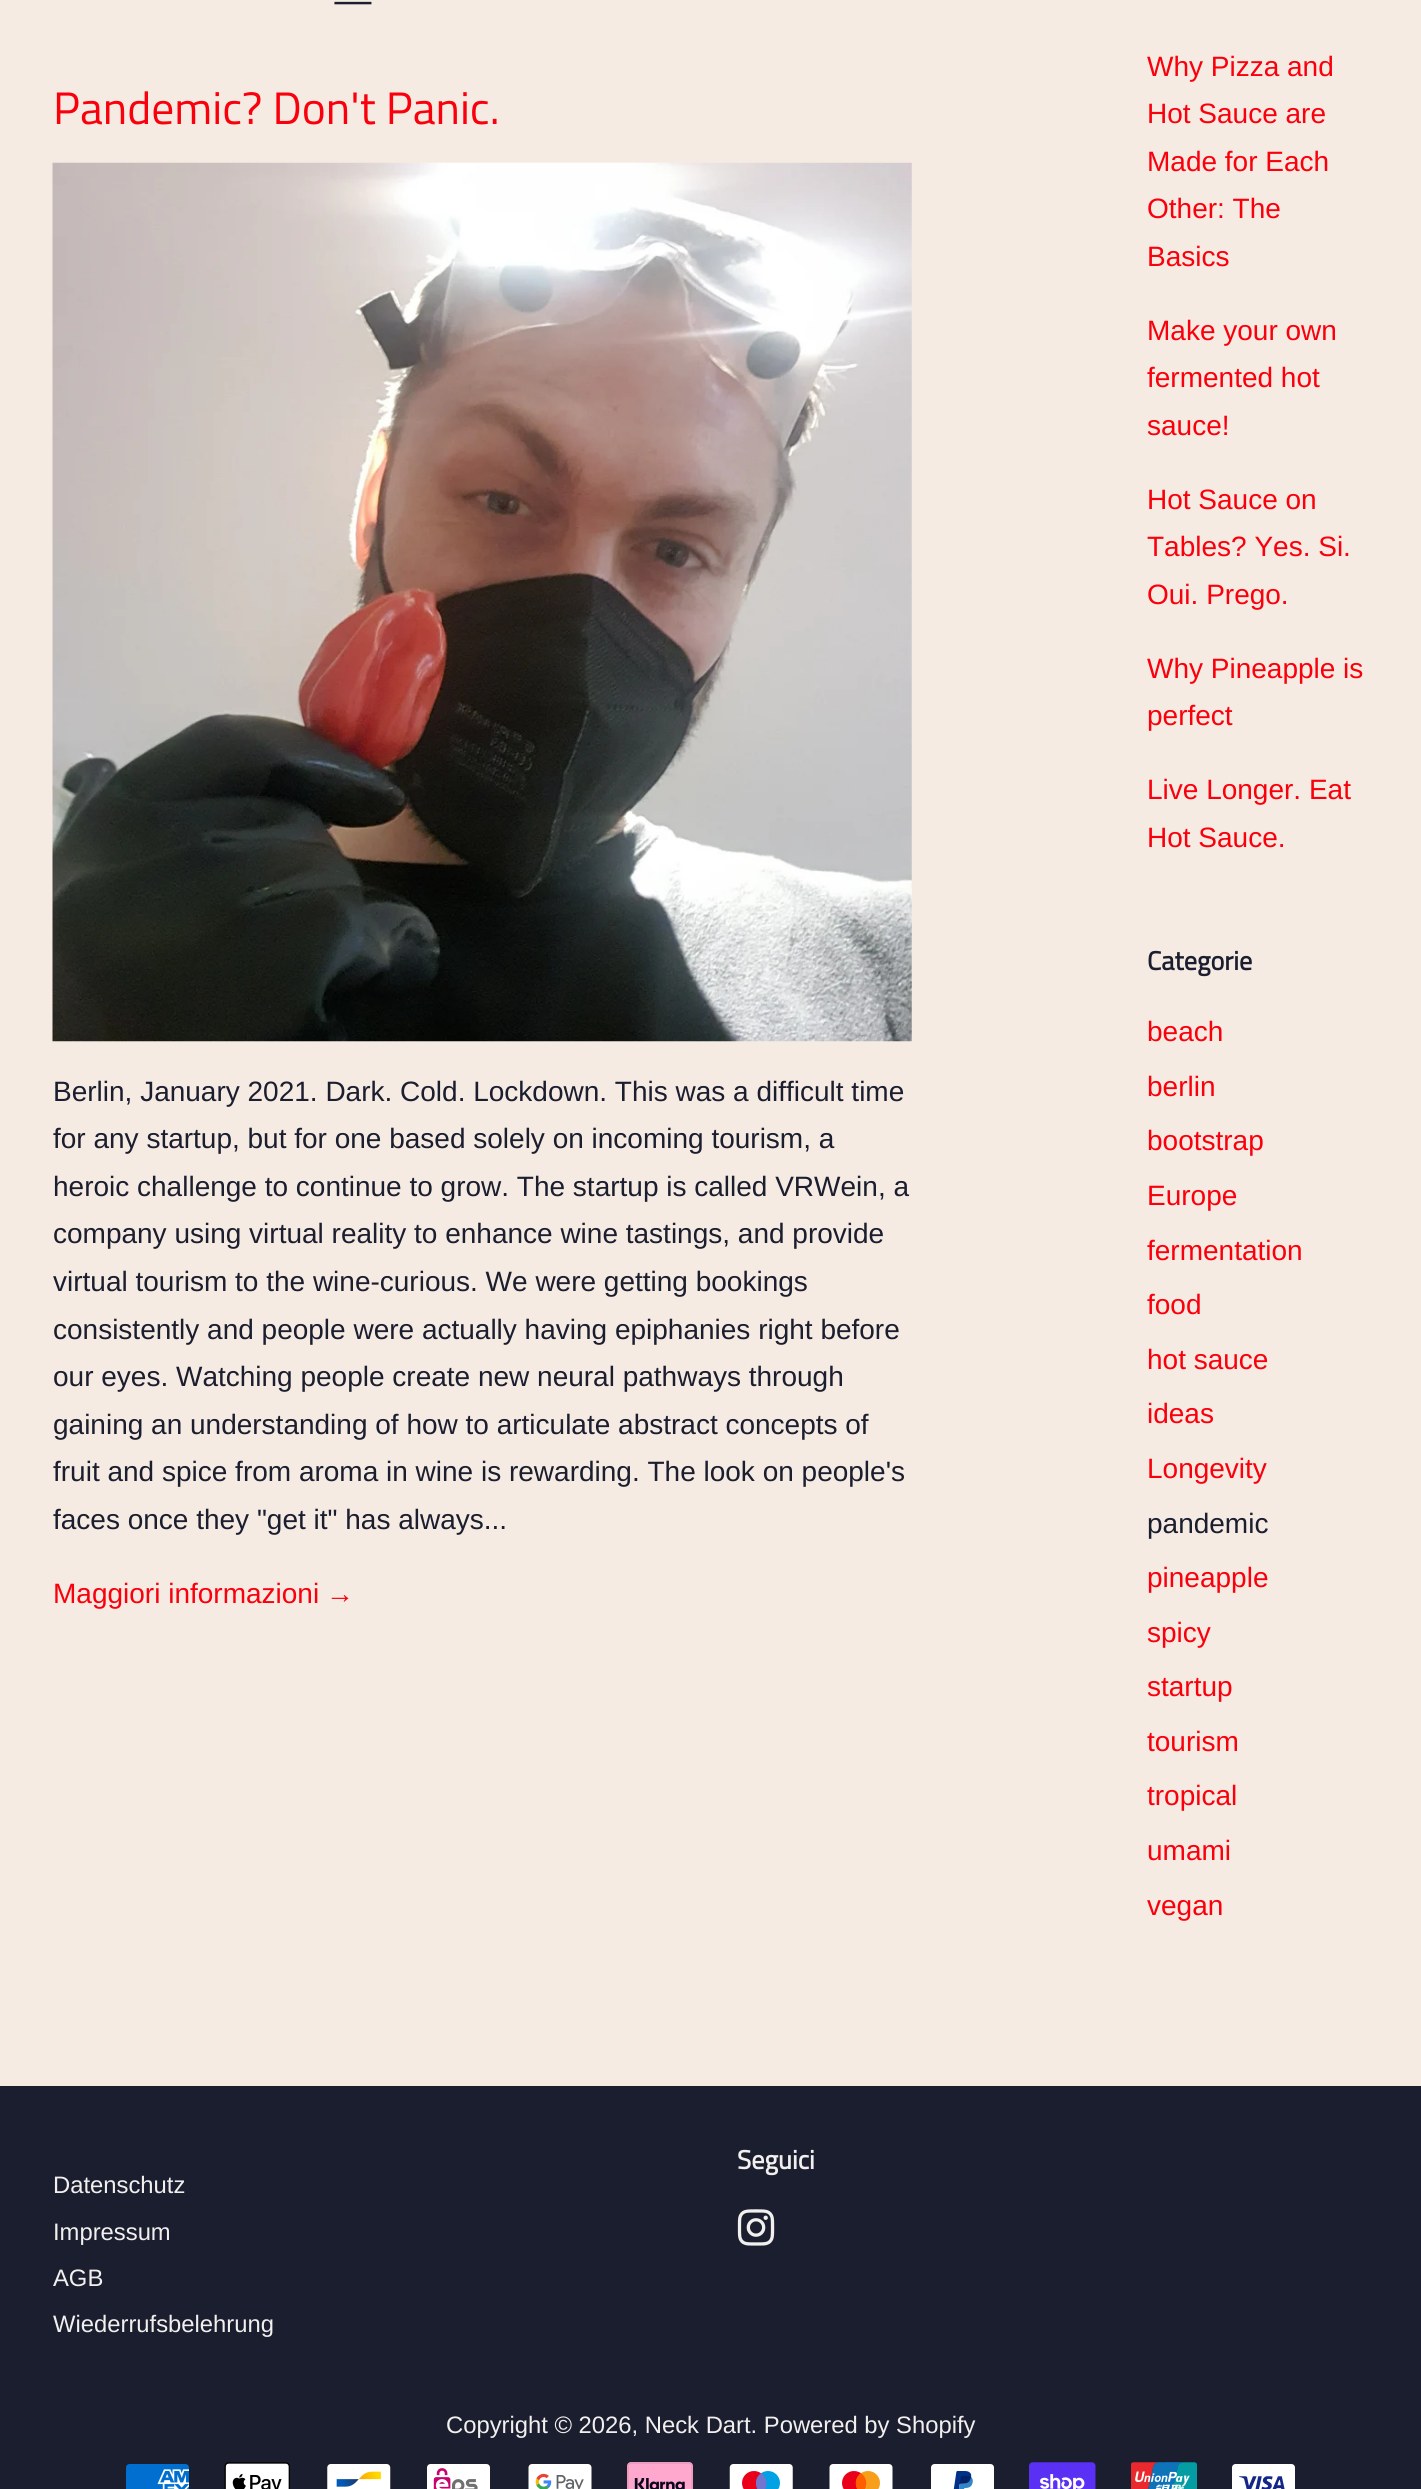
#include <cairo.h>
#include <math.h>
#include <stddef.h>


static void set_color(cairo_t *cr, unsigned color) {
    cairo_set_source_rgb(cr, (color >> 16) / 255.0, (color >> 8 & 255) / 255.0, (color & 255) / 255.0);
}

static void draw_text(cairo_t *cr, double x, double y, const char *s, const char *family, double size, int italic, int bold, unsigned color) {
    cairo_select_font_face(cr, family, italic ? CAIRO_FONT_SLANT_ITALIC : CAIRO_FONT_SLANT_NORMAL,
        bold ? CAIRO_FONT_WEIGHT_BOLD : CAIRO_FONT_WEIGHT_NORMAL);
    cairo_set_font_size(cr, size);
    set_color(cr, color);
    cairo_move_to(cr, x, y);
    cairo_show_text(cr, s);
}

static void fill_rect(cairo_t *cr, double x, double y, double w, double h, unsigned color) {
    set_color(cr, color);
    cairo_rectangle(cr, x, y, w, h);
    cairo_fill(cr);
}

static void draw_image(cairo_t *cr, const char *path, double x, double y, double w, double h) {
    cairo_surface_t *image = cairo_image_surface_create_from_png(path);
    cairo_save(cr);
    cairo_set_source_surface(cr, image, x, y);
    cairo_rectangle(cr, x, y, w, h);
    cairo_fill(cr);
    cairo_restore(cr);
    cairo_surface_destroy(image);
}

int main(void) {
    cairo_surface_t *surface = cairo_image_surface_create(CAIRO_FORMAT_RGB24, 1421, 2489);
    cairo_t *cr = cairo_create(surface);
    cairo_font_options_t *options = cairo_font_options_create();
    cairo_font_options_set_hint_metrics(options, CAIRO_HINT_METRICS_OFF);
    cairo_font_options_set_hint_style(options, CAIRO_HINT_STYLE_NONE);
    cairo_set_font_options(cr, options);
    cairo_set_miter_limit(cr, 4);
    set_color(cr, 0xF6EBE3);
    cairo_paint(cr);
    draw_text(cr, 332, 13, "—", "Titillium Web", 37, 0, 0, 0x1B1E2F);
    draw_text(cr, 53, 124, "Pandemic? Don't Panic.", "Titillium Web", 45.5, 0, 0, 0xFA000C);
    draw_image(cr, "assets/img1.png", 52, 162, 860, 880);
    draw_text(cr, 53, 1101, "Berlin, January 2021. Dark. Cold. Lockdown. This was a difficult time", "Arimo", 28, 0, 0, 0x1B1E2F);
    draw_text(cr, 53, 1148, "for any startup, but for one based solely on incoming tourism, a", "Arimo", 28, 0, 0, 0x1B1E2F);
    draw_text(cr, 53, 1196, "heroic challenge to continue to grow. The startup is called VRWein, a", "Arimo", 28, 0, 0, 0x1B1E2F);
    draw_text(cr, 53, 1243, "company using virtual reality to enhance wine tastings, and provide", "Arimo", 28, 0, 0, 0x1B1E2F);
    draw_text(cr, 53, 1291, "virtual tourism to the wine-curious. We were getting bookings", "Arimo", 28, 0, 0, 0x1B1E2F);
    draw_text(cr, 53, 1339, "consistently and people were actually having epiphanies right before", "Arimo", 28, 0, 0, 0x1B1E2F);
    draw_text(cr, 53, 1386, "our eyes. Watching people create new neural pathways through", "Arimo", 28, 0, 0, 0x1B1E2F);
    draw_text(cr, 53, 1434, "gaining an understanding of how to articulate abstract concepts of", "Arimo", 28, 0, 0, 0x1B1E2F);
    draw_text(cr, 53, 1481, "fruit and spice from aroma in wine is rewarding. The look on people's", "Arimo", 28, 0, 0, 0x1B1E2F);
    draw_text(cr, 53, 1529, "faces once they \"get it\" has always...", "Arimo", 28, 0, 0, 0x1B1E2F);
    draw_text(cr, 53, 1603, "Maggiori informazioni", "Arimo", 28, 0, 0, 0xFA000C);
    draw_text(cr, 326, 1603, "→", "Liberation Sans", 28, 0, 0, 0xFA000C);
    draw_text(cr, 1147, 76, "Why Pizza and", "Arimo", 28, 0, 0, 0xFA000C);
    draw_text(cr, 1147, 123, "Hot Sauce are", "Arimo", 28, 0, 0, 0xFA000C);
    draw_text(cr, 1147, 171, "Made for Each", "Arimo", 28, 0, 0, 0xFA000C);
    draw_text(cr, 1147, 218, "Other: The", "Arimo", 28, 0, 0, 0xFA000C);
    draw_text(cr, 1147, 266, "Basics", "Arimo", 28, 0, 0, 0xFA000C);
    draw_text(cr, 1147, 340, "Make your own", "Arimo", 28, 0, 0, 0xFA000C);
    draw_text(cr, 1147, 387, "fermented hot", "Arimo", 28, 0, 0, 0xFA000C);
    draw_text(cr, 1147, 435, "sauce!", "Arimo", 28, 0, 0, 0xFA000C);
    draw_text(cr, 1147, 509, "Hot Sauce on", "Arimo", 28, 0, 0, 0xFA000C);
    draw_text(cr, 1147, 556, "Tables? Yes. Si.", "Arimo", 28, 0, 0, 0xFA000C);
    draw_text(cr, 1147, 604, "Oui. Prego.", "Arimo", 28, 0, 0, 0xFA000C);
    draw_text(cr, 1147, 678, "Why Pineapple is", "Arimo", 28, 0, 0, 0xFA000C);
    draw_text(cr, 1147, 725, "perfect", "Arimo", 28, 0, 0, 0xFA000C);
    draw_text(cr, 1147, 799, "Live Longer. Eat", "Arimo", 28, 0, 0, 0xFA000C);
    draw_text(cr, 1147, 847, "Hot Sauce.", "Arimo", 28, 0, 0, 0xFA000C);
    draw_text(cr, 1147, 970, "Categorie", "Titillium Web", 26.25, 0, 1, 0x1B1E2F);
    draw_text(cr, 1147, 1041, "beach", "Arimo", 28, 0, 0, 0xFA000C);
    draw_text(cr, 1147, 1096, "berlin", "Arimo", 28, 0, 0, 0xFA000C);
    draw_text(cr, 1147, 1150, "bootstrap", "Arimo", 28, 0, 0, 0xFA000C);
    draw_text(cr, 1147, 1205, "Europe", "Arimo", 28, 0, 0, 0xFA000C);
    draw_text(cr, 1147, 1260, "fermentation", "Arimo", 28, 0, 0, 0xFA000C);
    draw_text(cr, 1147, 1314, "food", "Arimo", 28, 0, 0, 0xFA000C);
    draw_text(cr, 1147, 1369, "hot sauce", "Arimo", 28, 0, 0, 0xFA000C);
    draw_text(cr, 1147, 1423, "ideas", "Arimo", 28, 0, 0, 0xFA000C);
    draw_text(cr, 1147, 1478, "Longevity", "Arimo", 28, 0, 0, 0xFA000C);
    draw_text(cr, 1147, 1533, "pandemic", "Arimo", 28, 0, 0, 0x1B1E2F);
    draw_text(cr, 1147, 1587, "pineapple", "Arimo", 28, 0, 0, 0xFA000C);
    draw_text(cr, 1147, 1642, "spicy", "Arimo", 28, 0, 0, 0xFA000C);
    draw_text(cr, 1147, 1696, "startup", "Arimo", 28, 0, 0, 0xFA000C);
    draw_text(cr, 1147, 1751, "tourism", "Arimo", 28, 0, 0, 0xFA000C);
    draw_text(cr, 1147, 1805, "tropical", "Arimo", 28, 0, 0, 0xFA000C);
    draw_text(cr, 1147, 1860, "umami", "Arimo", 28, 0, 0, 0xFA000C);
    draw_text(cr, 1147, 1915, "vegan", "Arimo", 28, 0, 0, 0xFA000C);
    fill_rect(cr, 0, 2086, 1421, 403, 0x1B1E2F);
    draw_text(cr, 737, 2169, "Seguici", "Titillium Web", 26.25, 0, 1, 0xF2F0EE);
    draw_image(cr, "assets/img2.png", 737, 2209, 38, 37);
    draw_text(cr, 53, 2193, "Datenschutz", "Arimo", 23.8, 0, 0, 0xF2F0EE);
    draw_text(cr, 53, 2240, "Impressum", "Arimo", 23.8, 0, 0, 0xF2F0EE);
    draw_text(cr, 53, 2286, "AGB", "Arimo", 23.8, 0, 0, 0xF2F0EE);
    draw_text(cr, 53, 2332, "Wiederrufsbelehrung", "Arimo", 23.8, 0, 0, 0xF2F0EE);
    draw_text(cr, 446, 2433, "Copyright © 2026, Neck Dart. Powered by Shopify", "Arimo", 23.8, 0, 0, 0xF2F0EE);
    draw_image(cr, "assets/img3.png", 126, 2464, 63, 25);
    draw_image(cr, "assets/img4.png", 224, 2462, 66, 27);
    draw_image(cr, "assets/img5.png", 327, 2464, 64, 25);
    draw_image(cr, "assets/img6.png", 427, 2464, 63, 25);
    draw_image(cr, "assets/img7.png", 528, 2464, 64, 25);
    draw_image(cr, "assets/img8.png", 627, 2462, 66, 27);
    draw_image(cr, "assets/img9.png", 729, 2464, 64, 25);
    draw_image(cr, "assets/img10.png", 829, 2464, 64, 25);
    draw_image(cr, "assets/img11.png", 931, 2464, 63, 25);
    draw_image(cr, "assets/img12.png", 1029, 2462, 67, 27);
    draw_image(cr, "assets/img13.png", 1131, 2462, 66, 27);
    draw_image(cr, "assets/img14.png", 1232, 2464, 63, 25);
    cairo_surface_write_to_png(surface, "output.png");
    cairo_font_options_destroy(options);
    cairo_destroy(cr);
    cairo_surface_destroy(surface);
    return 0;
}
